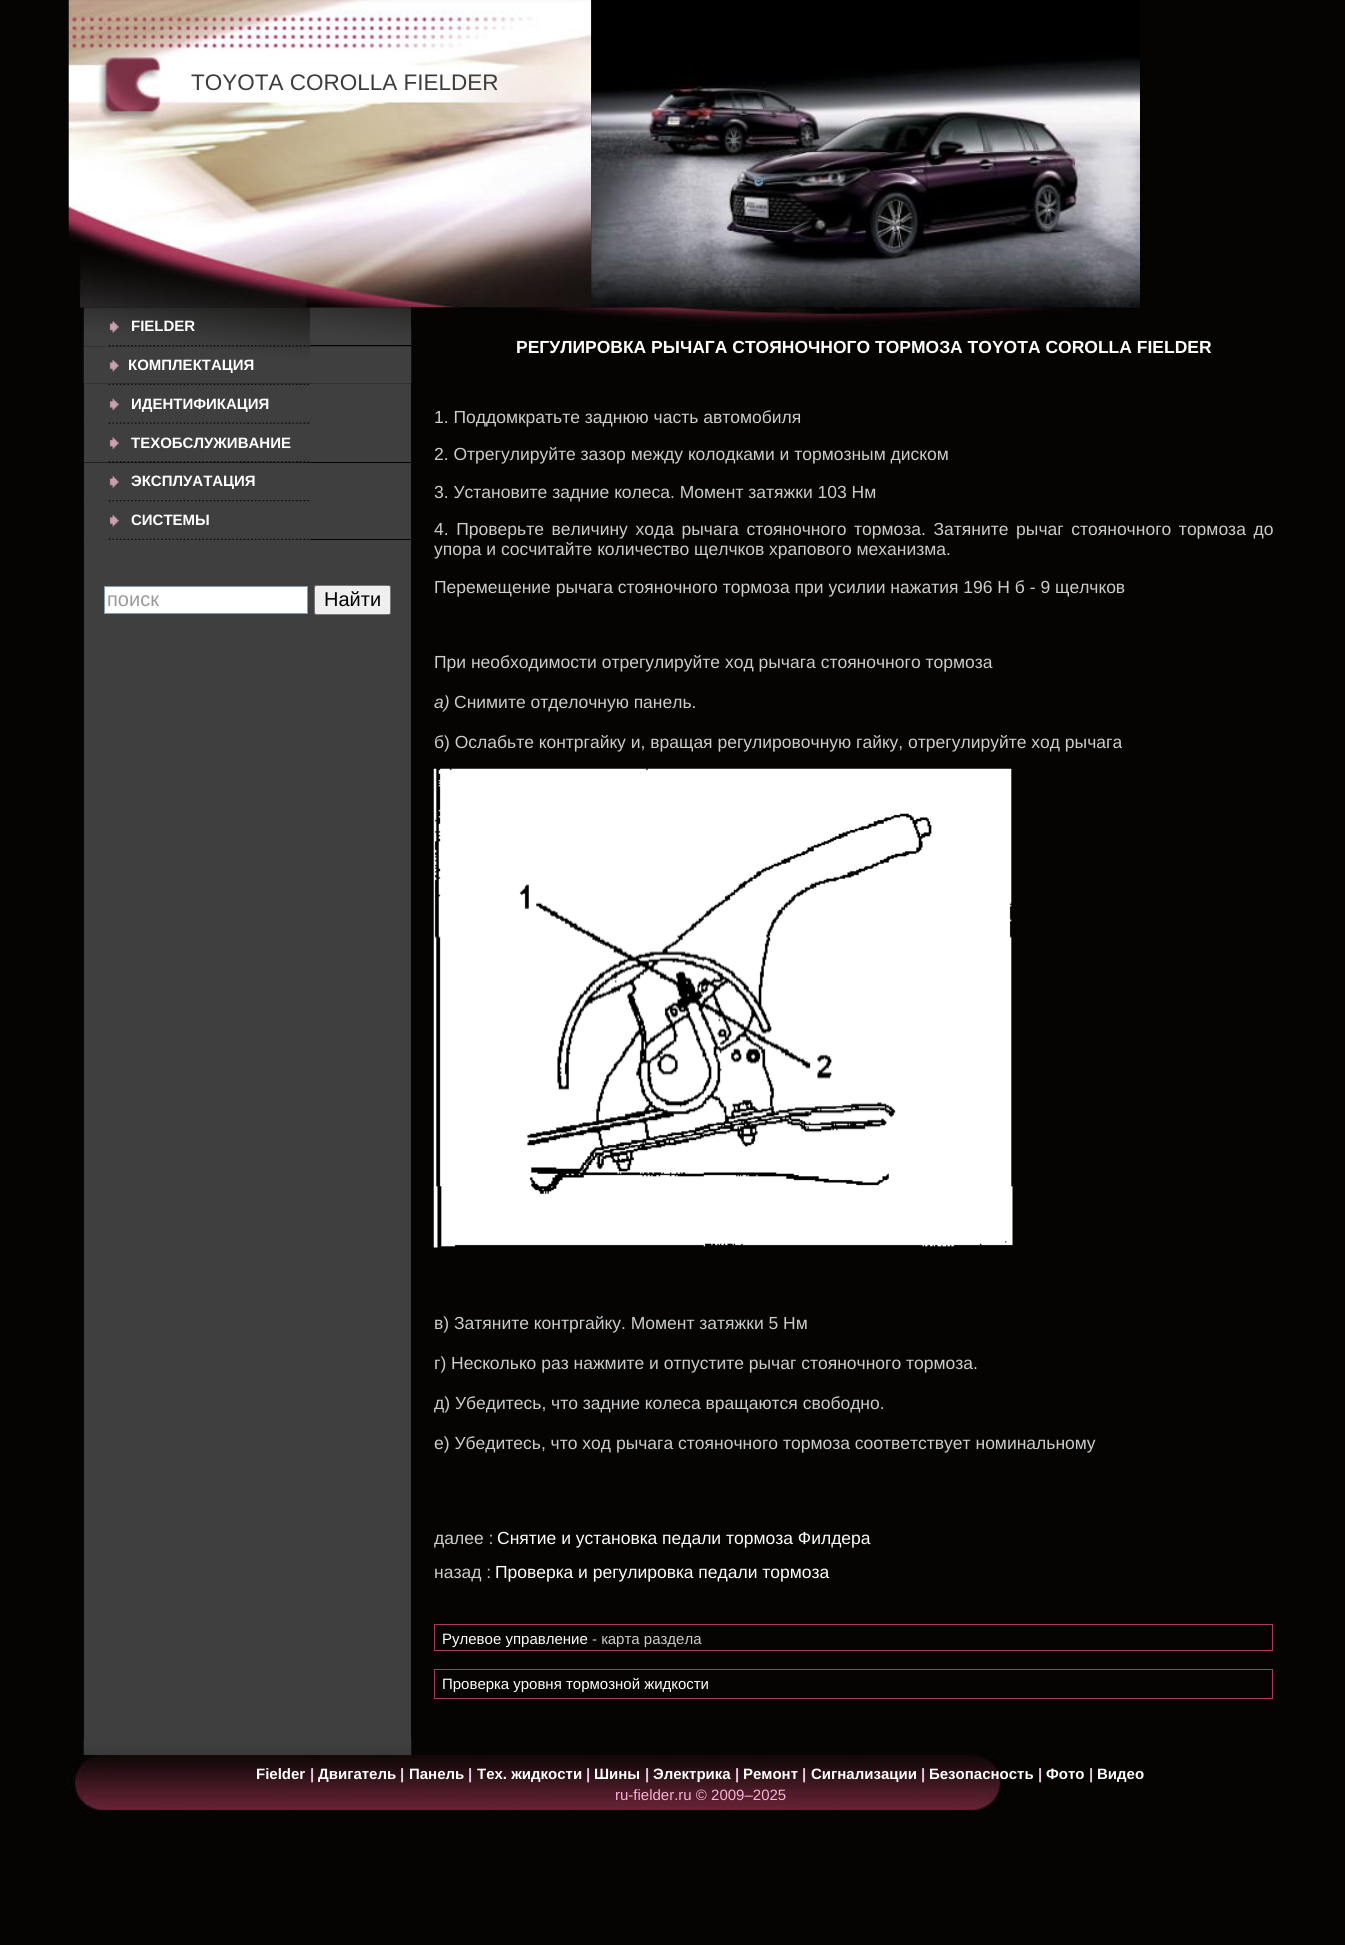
#include <cairo.h>
#include <math.h>
#include <stddef.h>


static void set_color(cairo_t *cr, unsigned color) {
    cairo_set_source_rgb(cr, (color >> 16) / 255.0, (color >> 8 & 255) / 255.0, (color & 255) / 255.0);
}

static void draw_text(cairo_t *cr, double x, double y, const char *s, const char *family, double size, int italic, int bold, unsigned color) {
    cairo_select_font_face(cr, family, italic ? CAIRO_FONT_SLANT_ITALIC : CAIRO_FONT_SLANT_NORMAL,
        bold ? CAIRO_FONT_WEIGHT_BOLD : CAIRO_FONT_WEIGHT_NORMAL);
    cairo_set_font_size(cr, size);
    set_color(cr, color);
    cairo_move_to(cr, x, y);
    cairo_show_text(cr, s);
}

static void draw_spaced(cairo_t *cr, double x, double y, const char *s, double letter, double word) {
    cairo_move_to(cr, x, y);
    while (*s) {
        char ch[5] = {0};
        int n = 0;
        do ch[n++] = *s++; while ((*s & 0xC0) == 0x80);
        cairo_show_text(cr, ch);
        cairo_rel_move_to(cr, letter + word * (*ch == ' '), 0);
    }
}

static void fill_rect(cairo_t *cr, double x, double y, double w, double h, unsigned color) {
    set_color(cr, color);
    cairo_rectangle(cr, x, y, w, h);
    cairo_fill(cr);
}

static void rounded_rect(cairo_t *cr, double x, double y, double w, double h, double r) {
    cairo_new_sub_path(cr);
    cairo_arc(cr, x + w - r, y + h - r, r, 0, M_PI / 2);
    cairo_arc(cr, x + r, y + h - r, r, M_PI / 2, M_PI);
    cairo_arc(cr, x + r, y + r, r, M_PI, 1.5 * M_PI);
    cairo_arc(cr, x + w - r, y + r, r, 1.5 * M_PI, 2 * M_PI);
    cairo_close_path(cr);
}

static void draw_image(cairo_t *cr, const char *path, double x, double y, double w, double h) {
    cairo_surface_t *image = cairo_image_surface_create_from_png(path);
    cairo_save(cr);
    cairo_set_source_surface(cr, image, x, y);
    cairo_rectangle(cr, x, y, w, h);
    cairo_fill(cr);
    cairo_restore(cr);
    cairo_surface_destroy(image);
}

int main(void) {
    cairo_surface_t *surface = cairo_image_surface_create(CAIRO_FORMAT_RGB24, 1345, 1945);
    cairo_t *cr = cairo_create(surface);
    cairo_font_options_t *options = cairo_font_options_create();
    cairo_font_options_set_hint_metrics(options, CAIRO_HINT_METRICS_OFF);
    cairo_font_options_set_hint_style(options, CAIRO_HINT_STYLE_NONE);
    cairo_set_font_options(cr, options);
    cairo_set_miter_limit(cr, 4);
    set_color(cr, 0x050402);
    cairo_paint(cr);
    draw_image(cr, "assets/img1.png", 68, 0, 524, 308);
    draw_image(cr, "assets/img2.png", 98, 57, 63, 65);
    draw_text(cr, 191, 90, "TOYOTA COROLLA FIELDER", "Liberation Sans", 22.5, 0, 0, 0x3D3C3C);
    draw_image(cr, "assets/img3.png", 591, 0, 549, 308);
    draw_image(cr, "assets/img4.png", 83, 307, 329, 38);
    draw_image(cr, "assets/img5.png", 109, 321, 10, 12);
    draw_text(cr, 131, 331, "FIELDER", "Liberation Sans", 15, 0, 1, 0xFFFFFF);
    draw_image(cr, "assets/img7.png", 83, 346, 329, 38);
    draw_image(cr, "assets/img6.png", 83, 345, 227, 2);
    draw_image(cr, "assets/img8.png", 109, 359, 10, 13);
    draw_text(cr, 128, 370, "КОМПЛЕКТАЦИЯ", "Liberation Sans", 15, 0, 1, 0xFFFFFF);
    fill_rect(cr, 310, 384, 101, 1, 0x3F3F3F);
    draw_image(cr, "assets/img9.png", 83, 383, 227, 2);
    fill_rect(cr, 84, 385, 327, 77, 0x3F3F3F);
    draw_image(cr, "assets/img10.png", 109, 398, 10, 13);
    draw_text(cr, 131, 409, "ИДЕНТИФИКАЦИЯ", "Liberation Sans", 15, 0, 1, 0xFFFFFF);
    draw_image(cr, "assets/img11.png", 83, 422, 227, 2);
    draw_image(cr, "assets/img12.png", 109, 437, 10, 12);
    draw_text(cr, 131, 448, "ТЕХОБСЛУЖИВАНИЕ", "Liberation Sans", 15, 0, 1, 0xFFFFFF);
    draw_image(cr, "assets/img13.png", 83, 461, 227, 2);
    fill_rect(cr, 84, 463, 327, 37, 0x3F3F3F);
    draw_image(cr, "assets/img14.png", 109, 476, 10, 12);
    draw_text(cr, 131, 486, "ЭКСПЛУАТАЦИЯ", "Liberation Sans", 15, 0, 1, 0xFFFFFF);
    fill_rect(cr, 310, 500, 101, 1, 0x3F3F3F);
    fill_rect(cr, 84, 501, 327, 38, 0x3F3F3F);
    draw_image(cr, "assets/img15.png", 83, 500, 227, 2);
    draw_image(cr, "assets/img8.png", 109, 514, 10, 13);
    draw_text(cr, 131, 525, "СИСТЕМЫ", "Liberation Sans", 15, 0, 1, 0xFFFFFF);
    draw_image(cr, "assets/img16.png", 83, 538, 227, 2);
    fill_rect(cr, 84, 540, 327, 1198, 0x3F3F3F);
    set_color(cr, 0xFFFFFF);
    cairo_rectangle(cr, 104.5, 586.5, 203, 27);
    cairo_fill_preserve(cr);
    set_color(cr, 0x7F9DB9);
    cairo_set_line_width(cr, 1);
    cairo_stroke(cr);
    draw_text(cr, 107, 606, "поиск", "Liberation Sans", 20, 0, 0, 0x999999);
    set_color(cr, 0xEFEFEF);
    rounded_rect(cr, 314.5, 585.5, 76, 29, 2);
    cairo_fill_preserve(cr);
    set_color(cr, 0x767676);
    cairo_stroke(cr);
    draw_text(cr, 324, 606, "Найти", "Liberation Sans", 20, 0, 0, 0x000000);
    draw_image(cr, "assets/img17.png", 83, 1737, 329, 18);
    draw_image(cr, "assets/img18.png", 411, 307, 700, 22);
    draw_text(cr, 516, 353, "РЕГУЛИРОВКА РЫЧАГА СТОЯНОЧНОГО ТОРМОЗА TOYOTA COROLLA FIELDER", "Liberation Sans", 17.5, 0, 1, 0xFFFFFF);
    draw_text(cr, 434, 423, "1. Поддомкратьте заднюю часть автомобиля", "Liberation Sans", 17.5, 0, 0, 0xCCCCCC);
    draw_text(cr, 434, 460, "2. Отрегулируйте зазор между колодками и тормозным диском", "Liberation Sans", 17.5, 0, 0, 0xCCCCCC);
    draw_text(cr, 434, 498, "3. Установите задние колеса. Момент затяжки 103 Нм", "Liberation Sans", 17.5, 0, 0, 0xCCCCCC);
    draw_spaced(cr, 434, 535, "4. Проверьте величину хода рычага стояночного тормоза. Затяните рычаг стояночного тормоза до", 0, 2.75);
    draw_text(cr, 434, 555, "упора и сосчитайте количество щелчков храпового механизма.", "Liberation Sans", 17.5, 0, 0, 0xCCCCCC);
    draw_text(cr, 434, 593, "Перемещение рычага стояночного тормоза при усилии нажатия 196 Н б - 9 щелчков", "Liberation Sans", 17.5, 0, 0, 0xCCCCCC);
    draw_text(cr, 434, 668, "При необходимости отрегулируйте ход рычага стояночного тормоза", "Liberation Sans", 17.5, 0, 0, 0xCCCCCC);
    draw_text(cr, 434, 708, "а)", "Liberation Sans", 17.5, 1, 0, 0xCCCCCC);
    draw_text(cr, 454, 708, "Снимите отделочную панель.", "Liberation Sans", 17.5, 0, 0, 0xCCCCCC);
    draw_text(cr, 434, 748, "б) Ослабьте контргайку и, вращая регулировочную гайку, отрегулируйте ход рычага", "Liberation Sans", 17.5, 0, 0, 0xCCCCCC);
    draw_image(cr, "assets/img19.png", 433, 768, 580, 480);
    draw_text(cr, 434, 1329, "в) Затяните контргайку. Момент затяжки 5 Нм", "Liberation Sans", 17.5, 0, 0, 0xCCCCCC);
    draw_text(cr, 434, 1369, "г) Несколько раз нажмите и отпустите рычаг стояночного тормоза.", "Liberation Sans", 17.5, 0, 0, 0xCCCCCC);
    draw_text(cr, 434, 1409, "д) Убедитесь, что задние колеса вращаются свободно.", "Liberation Sans", 17.5, 0, 0, 0xCCCCCC);
    draw_text(cr, 434, 1449, "е) Убедитесь, что ход рычага стояночного тормоза соответствует номинальному", "Liberation Sans", 17.5, 0, 0, 0xCCCCCC);
    draw_text(cr, 434, 1544, "далее :", "Liberation Sans", 17.5, 0, 0, 0xCCCCCC);
    draw_text(cr, 497, 1544, "Снятие и установка педали тормоза Филдера", "Liberation Sans", 17.5, 0, 0, 0xFFFFFF);
    draw_text(cr, 434, 1578, "назад :", "Liberation Sans", 17.5, 0, 0, 0xCCCCCC);
    draw_text(cr, 495, 1578, "Проверка и регулировка педали тормоза", "Liberation Sans", 17.5, 0, 0, 0xFFFFFF);
    cairo_rectangle(cr, 434.5, 1624.5, 838, 26);
    set_color(cr, 0xAC3A5C);
    cairo_stroke(cr);
    draw_text(cr, 442, 1644, "Рулевое управление", "Liberation Sans", 15, 0, 0, 0xFFFFFF);
    draw_text(cr, 592, 1644, "- карта раздела", "Liberation Sans", 15, 0, 0, 0xCCCCCC);
    cairo_rectangle(cr, 434.5, 1669.5, 838, 29);
    set_color(cr, 0xAC3A5C);
    cairo_stroke(cr);
    draw_text(cr, 442, 1689, "Проверка уровня тормозной жидкости", "Liberation Sans", 15, 0, 0, 0xFFFFFF);
    draw_image(cr, "assets/img20.png", 69, 1755, 937, 60);
    draw_text(cr, 256, 1779, "Fielder", "Liberation Sans", 15, 0, 1, 0xFFFFFF);
    draw_text(cr, 310, 1779, "|", "Liberation Sans", 15, 0, 1, 0xE6C9DC);
    draw_text(cr, 318, 1779, "Двигатель", "Liberation Sans", 15, 0, 1, 0xFFFFFF);
    draw_text(cr, 400, 1779, "|", "Liberation Sans", 15, 0, 1, 0xDFDFDF);
    draw_text(cr, 409, 1779, "Панель", "Liberation Sans", 15, 0, 1, 0xFFFFFF);
    draw_text(cr, 468, 1779, "|", "Liberation Sans", 15, 0, 1, 0xE6C9DC);
    draw_text(cr, 477, 1779, "Тех. жидкости", "Liberation Sans", 15, 0, 1, 0xFFFFFF);
    draw_text(cr, 586, 1779, "|", "Liberation Sans", 15, 0, 1, 0xE6C9DC);
    draw_text(cr, 594, 1779, "Шины", "Liberation Sans", 15, 0, 1, 0xFFFFFF);
    draw_text(cr, 645, 1779, "|", "Liberation Sans", 15, 0, 1, 0xE6C9DC);
    draw_text(cr, 653, 1779, "Электрика", "Liberation Sans", 15, 0, 1, 0xFFFFFF);
    draw_text(cr, 735, 1779, "|", "Liberation Sans", 15, 0, 1, 0xE6C9DC);
    draw_text(cr, 743, 1779, "Ремонт", "Liberation Sans", 15, 0, 1, 0xFFFFFF);
    draw_text(cr, 802, 1779, "|", "Liberation Sans", 15, 0, 1, 0xE6C9DC);
    draw_text(cr, 811, 1779, "Сигнализации", "Liberation Sans", 15, 0, 1, 0xFFFFFF);
    draw_text(cr, 921, 1779, "|", "Liberation Sans", 15, 0, 1, 0xE6C9DC);
    draw_text(cr, 929, 1779, "Безопасность", "Liberation Sans", 15, 0, 1, 0xFFFFFF);
    draw_text(cr, 1038, 1779, "|", "Liberation Sans", 15, 0, 1, 0xE6C9DC);
    draw_text(cr, 1046, 1779, "Фото", "Liberation Sans", 15, 0, 1, 0xFFFFFF);
    draw_text(cr, 1089, 1779, "|", "Liberation Sans", 15, 0, 1, 0xE6C9DC);
    draw_text(cr, 1097, 1779, "Видео", "Liberation Sans", 15, 0, 1, 0xFFFFFF);
    draw_text(cr, 615, 1800, "ru-fielder.ru © 2009–2025", "Liberation Sans", 15, 0, 0, 0xF8B1D7);
    cairo_surface_write_to_png(surface, "output.png");
    cairo_font_options_destroy(options);
    cairo_destroy(cr);
    cairo_surface_destroy(surface);
    return 0;
}
